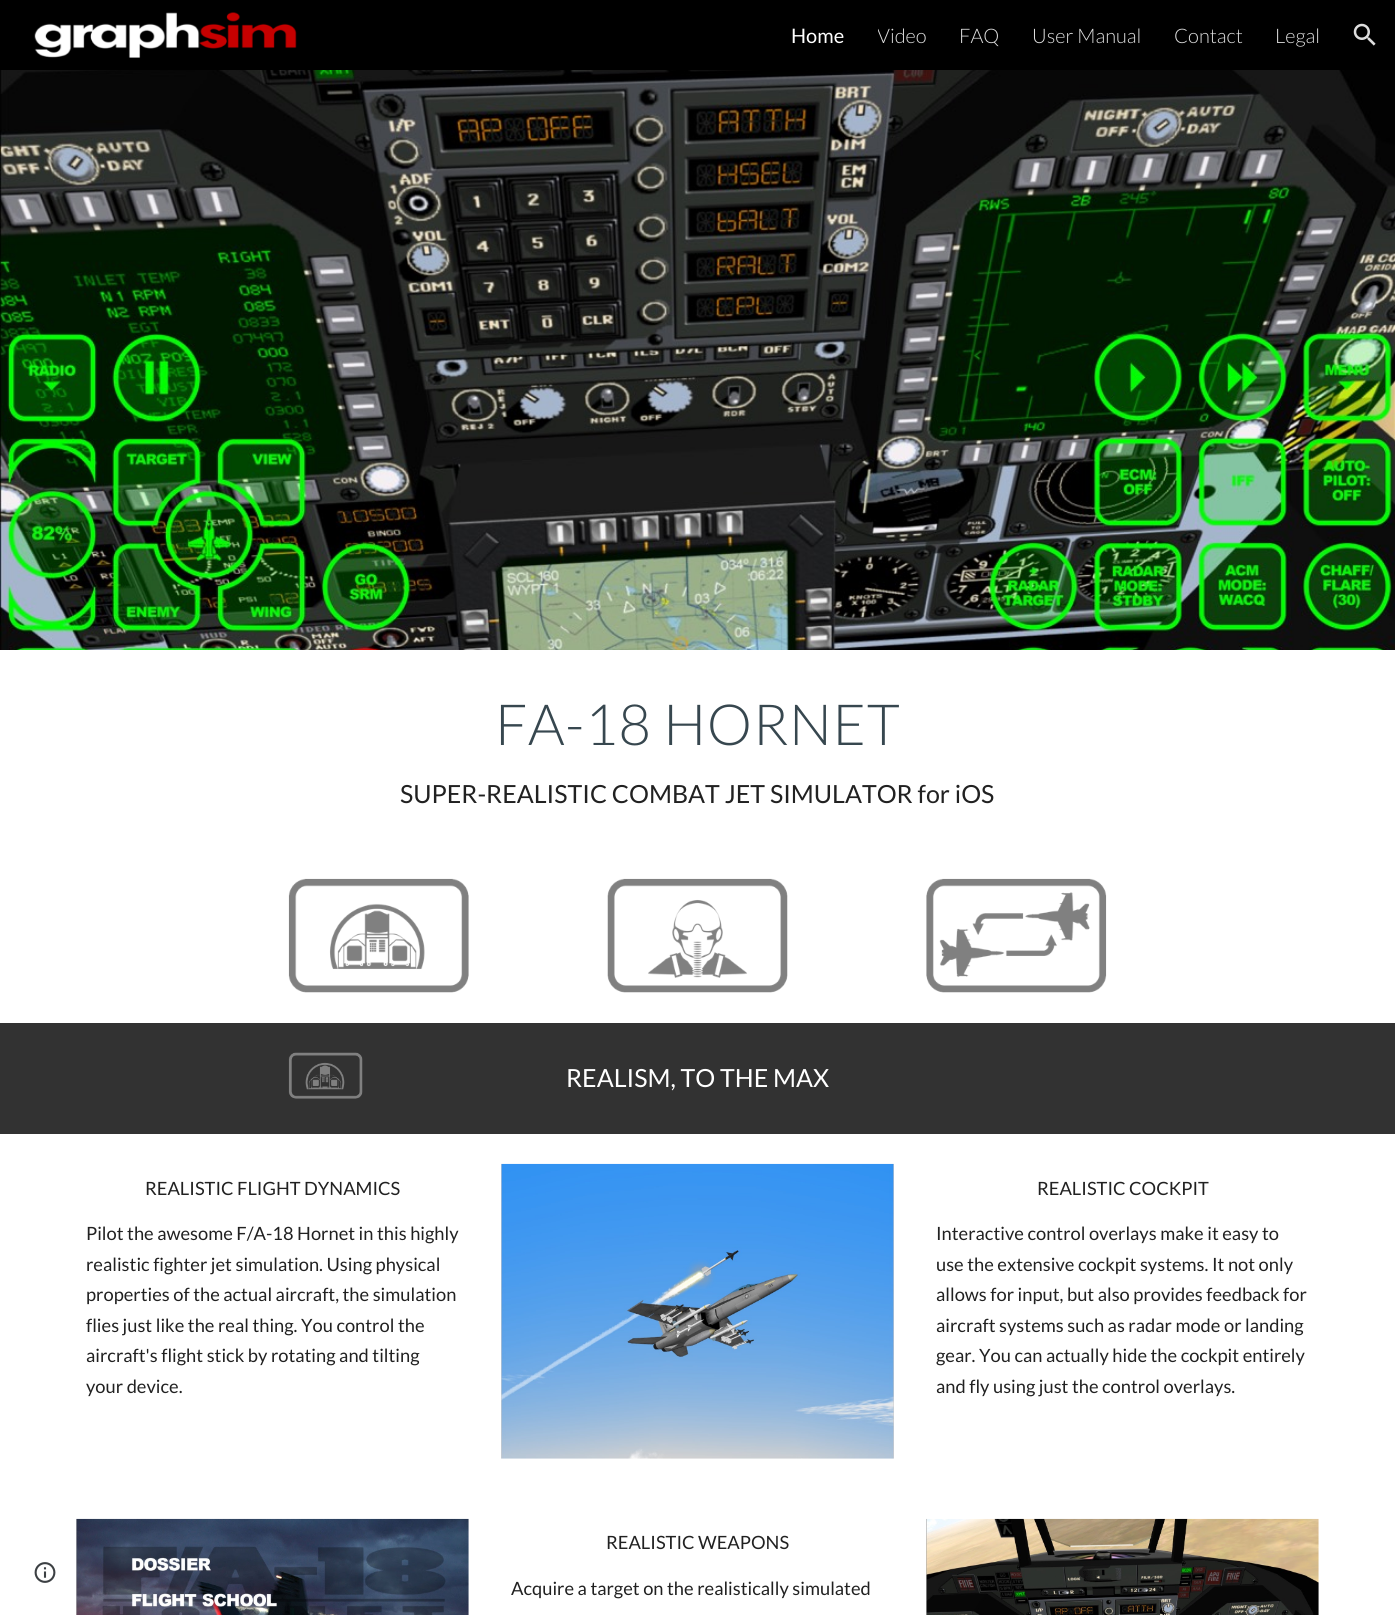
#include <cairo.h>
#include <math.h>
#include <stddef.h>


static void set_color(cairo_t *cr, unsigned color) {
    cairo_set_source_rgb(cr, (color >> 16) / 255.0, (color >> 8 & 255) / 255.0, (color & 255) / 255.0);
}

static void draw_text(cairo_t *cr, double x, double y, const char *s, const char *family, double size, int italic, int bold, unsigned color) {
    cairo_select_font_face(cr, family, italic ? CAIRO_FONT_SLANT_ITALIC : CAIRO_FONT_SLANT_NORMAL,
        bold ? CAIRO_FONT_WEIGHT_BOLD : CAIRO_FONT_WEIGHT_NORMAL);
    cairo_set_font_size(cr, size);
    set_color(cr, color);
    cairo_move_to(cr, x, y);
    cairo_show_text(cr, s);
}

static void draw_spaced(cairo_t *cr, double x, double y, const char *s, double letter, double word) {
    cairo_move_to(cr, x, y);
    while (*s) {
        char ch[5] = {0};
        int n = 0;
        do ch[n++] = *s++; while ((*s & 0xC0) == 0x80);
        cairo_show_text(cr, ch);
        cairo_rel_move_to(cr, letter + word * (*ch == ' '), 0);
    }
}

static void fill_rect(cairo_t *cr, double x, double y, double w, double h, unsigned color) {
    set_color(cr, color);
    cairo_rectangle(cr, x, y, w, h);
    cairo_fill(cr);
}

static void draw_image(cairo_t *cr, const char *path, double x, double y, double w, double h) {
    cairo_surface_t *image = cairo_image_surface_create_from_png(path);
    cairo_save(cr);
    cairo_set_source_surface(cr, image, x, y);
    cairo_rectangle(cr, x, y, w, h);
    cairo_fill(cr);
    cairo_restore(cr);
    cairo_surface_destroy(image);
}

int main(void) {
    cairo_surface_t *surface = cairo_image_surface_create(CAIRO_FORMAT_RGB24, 1395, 1615);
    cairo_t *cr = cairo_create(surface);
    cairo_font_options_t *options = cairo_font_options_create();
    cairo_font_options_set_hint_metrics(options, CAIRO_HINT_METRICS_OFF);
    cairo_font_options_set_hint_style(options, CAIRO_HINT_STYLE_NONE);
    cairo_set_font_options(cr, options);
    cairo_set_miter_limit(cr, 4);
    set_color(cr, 0xFFFFFF);
    cairo_paint(cr);
    fill_rect(cr, 0, 0, 1395, 70, 0x000000);
    draw_image(cr, "assets/img1.png", 34, 12, 263, 46);
    draw_text(cr, 791, 43, "Home", "Lato", 20, 0, 0, 0xFFFFFF);
    cairo_save(cr);
    cairo_rectangle(cr, 878, 24, 48, 24);
    cairo_clip(cr);
    draw_text(cr, 877, 43, "Video", "Lato Light", 20, 0, 0, 0xDEDEDE);
    cairo_restore(cr);
    draw_text(cr, 959, 43, "FAQ", "Lato Light", 20, 0, 0, 0xDEDEDE);
    draw_text(cr, 1032, 43, "User Manual", "Lato Light", 20, 0, 0, 0xDEDEDE);
    draw_text(cr, 1174, 43, "Contact", "Lato Light", 20, 0, 0, 0xDEDEDE);
    draw_text(cr, 1275, 43, "Legal", "Lato Light", 20, 0, 0, 0xDEDEDE);
    draw_image(cr, "assets/img2.png", 1353, 23, 23, 23);
    draw_image(cr, "assets/img3.png", 34, 1562, 22, 21);
    draw_image(cr, "assets/img4.png", 0, 70, 1395, 580);
    cairo_set_font_size(cr, 56.75);
    set_color(cr, 0x37474F);
    draw_spaced(cr, 495, 745, "FA-18 HORNET", 0.6, 0);
    draw_text(cr, 400, 803, "SUPER-REALISTIC COMBAT JET SIMULATOR for iOS", "Lato", 25, 0, 0, 0x212121);
    draw_image(cr, "assets/img5.png", 288, 878, 181, 115);
    draw_image(cr, "assets/img6.png", 607, 878, 181, 115);
    draw_image(cr, "assets/img7.png", 926, 878, 181, 115);
    fill_rect(cr, 0, 1023, 1395, 111, 0x323232);
    draw_image(cr, "assets/img8.png", 288, 1052, 75, 47);
    draw_text(cr, 566, 1087, "REALISM, TO THE MAX", "Lato", 25, 0, 0, 0xFFFFFF);
    draw_text(cr, 145, 1195, "REALISTIC FLIGHT DYNAMICS", "Lato", 18.3, 0, 0, 0x212121);
    draw_text(cr, 86, 1240, "Pilot the awesome F/A-18 Hornet in this highly", "Lato", 18.3, 0, 0, 0x212121);
    draw_text(cr, 86, 1271, "realistic fighter jet simulation. Using physical", "Lato", 18.3, 0, 0, 0x212121);
    draw_text(cr, 86, 1301, "properties of the actual aircraft, the simulation", "Lato", 18.3, 0, 0, 0x212121);
    draw_text(cr, 86, 1332, "flies just like the real thing. You control the", "Lato", 18.3, 0, 0, 0x212121);
    draw_text(cr, 86, 1362, "aircraft's flight stick by rotating and tilting", "Lato", 18.3, 0, 0, 0x212121);
    draw_text(cr, 86, 1393, "your device.", "Lato", 18.3, 0, 0, 0x212121);
    draw_image(cr, "assets/img9.png", 501, 1163, 393, 296);
    draw_text(cr, 1037, 1195, "REALISTIC COCKPIT", "Lato", 18.3, 0, 0, 0x212121);
    draw_text(cr, 936, 1240, "Interactive control overlays make it easy to", "Lato", 18.3, 0, 0, 0x212121);
    draw_text(cr, 936, 1271, "use the extensive cockpit systems. It not only", "Lato", 18.3, 0, 0, 0x212121);
    draw_text(cr, 936, 1301, "allows for input, but also provides feedback for", "Lato", 18.3, 0, 0, 0x212121);
    draw_text(cr, 936, 1332, "aircraft systems such as radar mode or landing", "Lato", 18.3, 0, 0, 0x212121);
    draw_text(cr, 936, 1362, "gear. You can actually hide the cockpit entirely", "Lato", 18.3, 0, 0, 0x212121);
    draw_text(cr, 936, 1393, "and fly using just the control overlays.", "Lato", 18.3, 0, 0, 0x212121);
    draw_image(cr, "assets/img10.png", 76, 1518, 393, 97);
    draw_text(cr, 606, 1549, "REALISTIC WEAPONS", "Lato", 18.3, 0, 0, 0x212121);
    draw_text(cr, 511, 1595, "Acquire a target on the realistically simulated", "Lato", 18.3, 0, 0, 0x212121);
    draw_image(cr, "assets/img11.png", 926, 1518, 393, 97);
    cairo_surface_write_to_png(surface, "output.png");
    cairo_font_options_destroy(options);
    cairo_destroy(cr);
    cairo_surface_destroy(surface);
    return 0;
}
